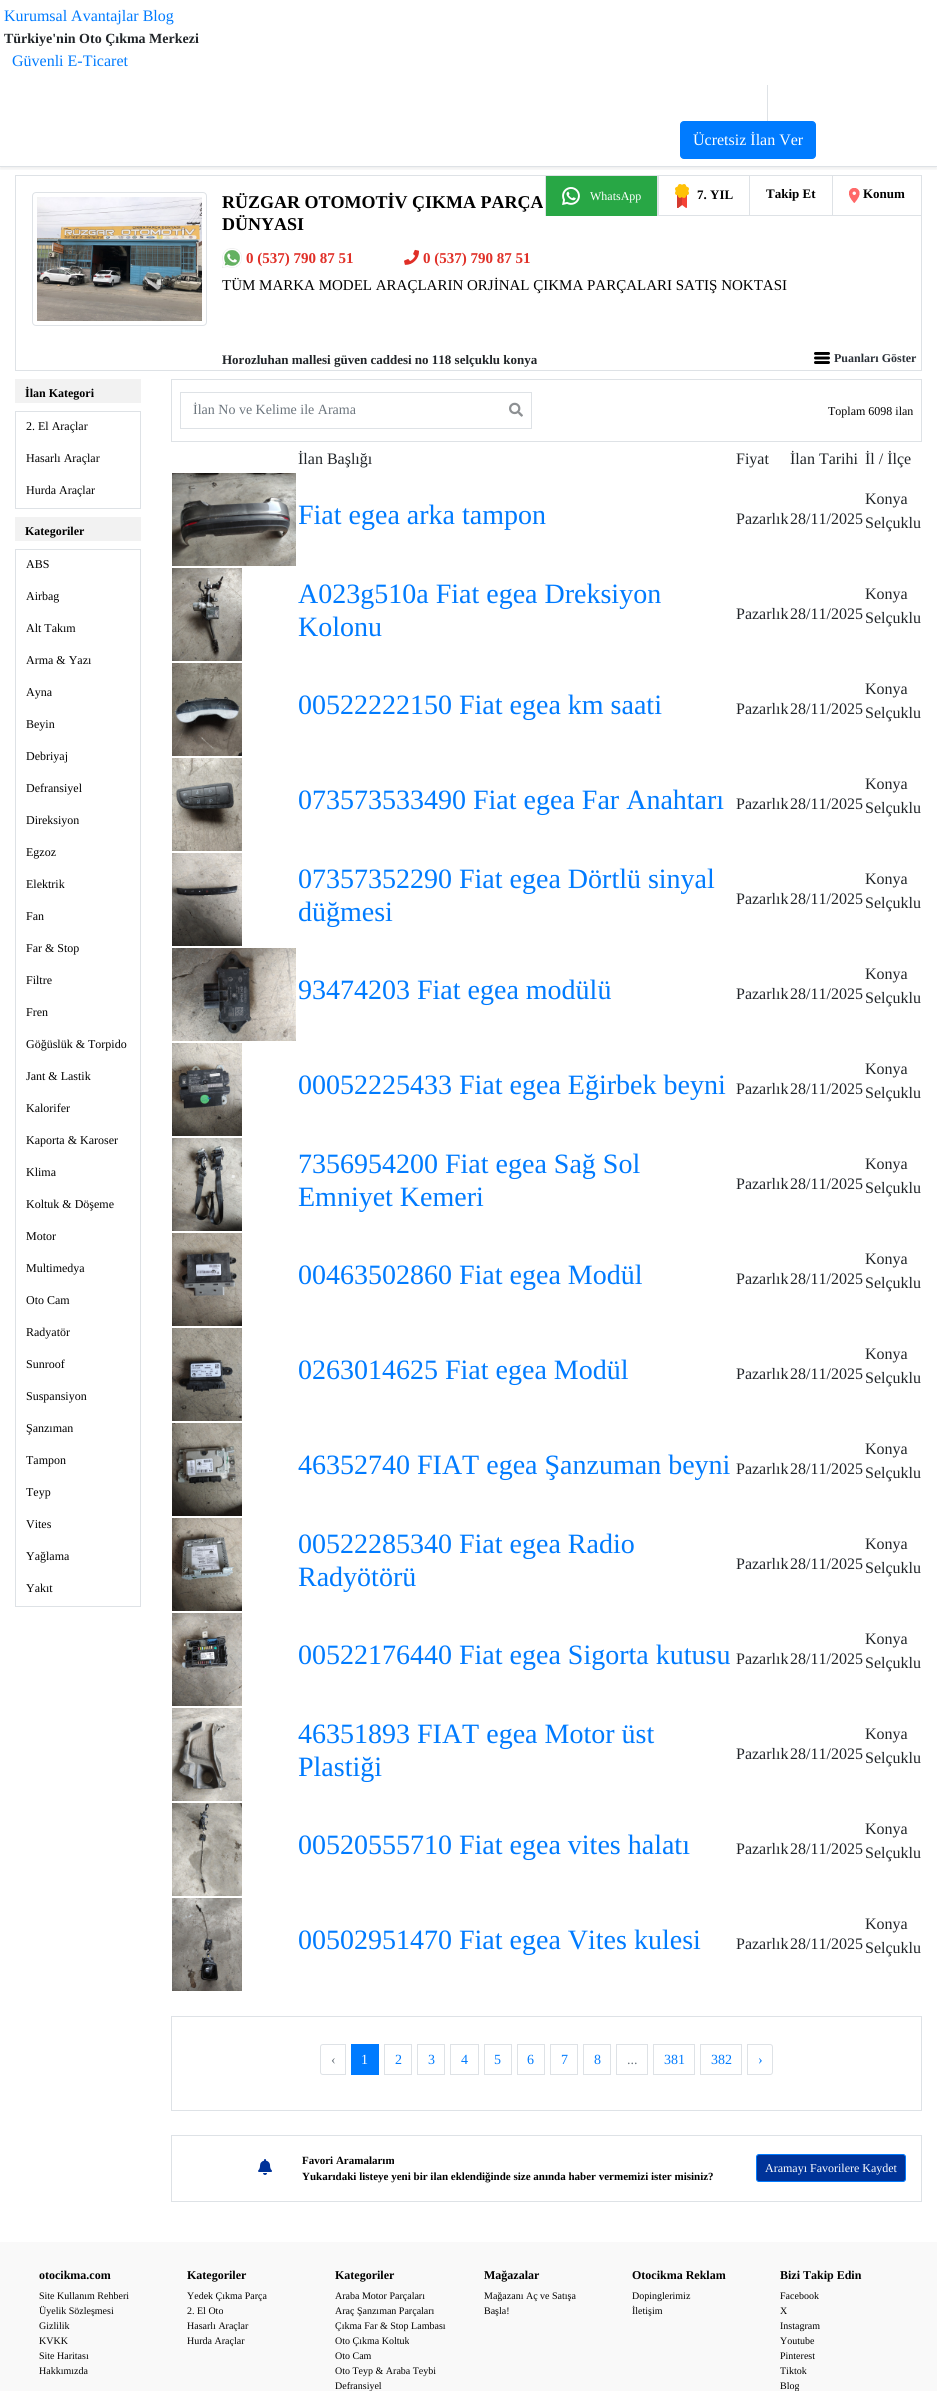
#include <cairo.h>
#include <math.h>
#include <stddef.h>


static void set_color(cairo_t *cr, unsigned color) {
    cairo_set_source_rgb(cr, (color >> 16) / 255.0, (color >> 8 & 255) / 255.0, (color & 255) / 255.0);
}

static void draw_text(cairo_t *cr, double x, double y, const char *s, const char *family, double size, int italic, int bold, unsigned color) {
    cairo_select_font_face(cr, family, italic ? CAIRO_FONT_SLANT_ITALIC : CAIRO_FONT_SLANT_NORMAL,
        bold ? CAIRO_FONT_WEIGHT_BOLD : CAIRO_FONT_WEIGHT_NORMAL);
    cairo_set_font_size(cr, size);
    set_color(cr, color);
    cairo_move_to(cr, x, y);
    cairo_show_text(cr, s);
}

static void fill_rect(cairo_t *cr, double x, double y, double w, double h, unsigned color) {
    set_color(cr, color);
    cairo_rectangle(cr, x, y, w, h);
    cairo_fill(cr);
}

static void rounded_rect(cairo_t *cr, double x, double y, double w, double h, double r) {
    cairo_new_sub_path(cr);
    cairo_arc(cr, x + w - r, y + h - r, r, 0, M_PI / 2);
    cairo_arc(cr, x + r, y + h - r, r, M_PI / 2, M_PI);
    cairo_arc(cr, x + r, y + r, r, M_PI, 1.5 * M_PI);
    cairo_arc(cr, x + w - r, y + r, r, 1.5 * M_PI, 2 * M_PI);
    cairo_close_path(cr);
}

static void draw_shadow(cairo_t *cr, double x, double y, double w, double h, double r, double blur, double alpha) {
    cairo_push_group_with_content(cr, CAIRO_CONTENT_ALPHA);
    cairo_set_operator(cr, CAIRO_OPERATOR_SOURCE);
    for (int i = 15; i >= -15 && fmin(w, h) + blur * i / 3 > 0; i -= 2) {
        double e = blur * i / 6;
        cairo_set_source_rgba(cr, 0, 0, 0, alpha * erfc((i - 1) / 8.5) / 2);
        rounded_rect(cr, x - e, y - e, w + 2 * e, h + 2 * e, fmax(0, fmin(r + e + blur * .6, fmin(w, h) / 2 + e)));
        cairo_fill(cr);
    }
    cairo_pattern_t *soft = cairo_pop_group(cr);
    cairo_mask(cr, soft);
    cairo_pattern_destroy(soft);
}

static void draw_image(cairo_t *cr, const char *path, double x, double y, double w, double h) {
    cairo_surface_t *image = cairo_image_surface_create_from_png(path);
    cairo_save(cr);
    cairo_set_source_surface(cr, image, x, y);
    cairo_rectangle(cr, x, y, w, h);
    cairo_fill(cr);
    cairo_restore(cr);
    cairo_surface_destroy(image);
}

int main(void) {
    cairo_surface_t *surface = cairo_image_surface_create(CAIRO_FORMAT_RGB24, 937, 2391);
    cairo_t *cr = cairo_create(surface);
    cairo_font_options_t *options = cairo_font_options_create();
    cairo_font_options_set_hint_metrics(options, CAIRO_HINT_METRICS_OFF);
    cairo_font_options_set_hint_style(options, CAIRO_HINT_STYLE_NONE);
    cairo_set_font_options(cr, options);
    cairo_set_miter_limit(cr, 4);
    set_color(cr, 0xFFFFFF);
    cairo_paint(cr);
    cairo_save(cr);
    cairo_rectangle(cr, 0, 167, 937, 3);
    cairo_clip(cr);
    set_color(cr, 0x000000);
    draw_shadow(cr, 0, 2, 937, 167, 0, 2, 0.07);
    cairo_restore(cr);
    fill_rect(cr, 0, 166, 937, 1, 0xDEE2E6);
    draw_text(cr, 4, 21, "Kurumsal Avantajlar Blog", "Liberation Serif", 16, 0, 0, 0x007BFF);
    draw_text(cr, 4, 43, "Türkiye'nin Oto Çıkma Merkezi", "Liberation Serif", 14, 0, 1, 0x212529);
    draw_text(cr, 12, 66, "Güvenli E-Ticaret", "Liberation Serif", 16, 0, 0, 0x007BFF);
    fill_rect(cr, 767, 85, 1, 37, 0xDEE2E6);
    set_color(cr, 0x007BFF);
    rounded_rect(cr, 680.5, 121.5, 135, 37, 3.5);
    cairo_fill_preserve(cr);
    cairo_set_line_width(cr, 1);
    cairo_stroke(cr);
    draw_text(cr, 693, 145, "Ücretsiz İlan Ver", "Liberation Serif", 16, 0, 0, 0xFFFFFF);
    cairo_rectangle(cr, 15.5, 175.5, 906, 195);
    set_color(cr, 0xDEE2E6);
    cairo_stroke(cr);
    rounded_rect(cr, 32.5, 192.5, 174, 133, 3.5);
    cairo_stroke(cr);
    draw_image(cr, "assets/img1.png", 37, 197, 165, 124);
    draw_text(cr, 222, 208, "RÜZGAR OTOMOTİV ÇIKMA PARÇA", "Liberation Serif", 18, 0, 1, 0x000000);
    draw_text(cr, 222, 230, "DÜNYASI", "Liberation Serif", 18, 0, 1, 0x000000);
    fill_rect(cr, 659, 215, 263, 1, 0xDEE2E6);
    fill_rect(cr, 657, 176, 2, 40, 0xDEE2E6);
    fill_rect(cr, 545, 176, 1, 40, 0xDEE2E6);
    fill_rect(cr, 546, 176, 111, 40, 0x28A745);
    draw_image(cr, "assets/img2.png", 562, 187, 18, 18);
    draw_text(cr, 590, 200, "WhatsApp", "Liberation Serif", 12, 0, 0, 0xFFFFFF);
    fill_rect(cr, 749, 176, 1, 40, 0xDEE2E6);
    draw_image(cr, "assets/img3.png", 675, 184, 14, 24);
    draw_text(cr, 697, 199, "7. YIL", "Liberation Serif", 13, 0, 1, 0x000000);
    fill_rect(cr, 832, 176, 1, 40, 0xDEE2E6);
    draw_text(cr, 766, 198, "Takip Et", "Liberation Serif", 13, 0, 1, 0x000000);
    draw_image(cr, "assets/img4.png", 849, 188, 11, 15);
    draw_text(cr, 863, 198, "Konum", "Liberation Serif", 13, 0, 1, 0x000000);
    draw_image(cr, "assets/img5.png", 222, 248, 20, 20);
    draw_text(cr, 246, 263, "0 (537) 790 87 51", "Liberation Serif", 15, 0, 1, 0xE02F27);
    draw_image(cr, "assets/img6.png", 404, 249, 15, 16);
    draw_text(cr, 423, 263, "0 (537) 790 87 51", "Liberation Serif", 15, 0, 1, 0xE02F27);
    draw_text(cr, 222, 290, "TÜM MARKA MODEL ARAÇLARIN ORJİNAL ÇIKMA PARÇALARI SATIŞ NOKTASI", "Liberation Serif", 15, 0, 0, 0x000000);
    draw_text(cr, 222, 364, "Horozluhan mallesi güven caddesi no 118 selçuklu konya", "Liberation Serif", 13, 0, 1, 0x212529);
    draw_image(cr, "assets/img7.png", 814, 352, 16, 12);
    draw_text(cr, 834, 362, "Puanları Göster", "Liberation Serif", 12, 0, 1, 0x2B3139);
    fill_rect(cr, 15, 379, 126, 24, 0xF2F2F2);
    draw_text(cr, 25, 397, "İlan Kategori", "Liberation Serif", 12, 0, 1, 0x000000);
    cairo_rectangle(cr, 15.5, 411.5, 125, 97);
    set_color(cr, 0xDEE2E6);
    cairo_stroke(cr);
    draw_text(cr, 26, 430, "2. El Araçlar", "Liberation Serif", 12, 0, 0, 0x000000);
    draw_text(cr, 26, 462, "Hasarlı Araçlar", "Liberation Serif", 12, 0, 0, 0x000000);
    draw_text(cr, 26, 494, "Hurda Araçlar", "Liberation Serif", 12, 0, 0, 0x000000);
    fill_rect(cr, 15, 517, 126, 24, 0xF2F2F2);
    draw_text(cr, 25, 535, "Kategoriler", "Liberation Serif", 12, 0, 1, 0x000000);
    cairo_rectangle(cr, 15.5, 549.5, 125, 1057);
    set_color(cr, 0xDEE2E6);
    cairo_stroke(cr);
    draw_text(cr, 26, 568, "ABS", "Liberation Serif", 12, 0, 0, 0x000000);
    draw_text(cr, 26, 600, "Airbag", "Liberation Serif", 12, 0, 0, 0x000000);
    draw_text(cr, 26, 632, "Alt Takım", "Liberation Serif", 12, 0, 0, 0x000000);
    draw_text(cr, 26, 664, "Arma & Yazı", "Liberation Serif", 12, 0, 0, 0x000000);
    draw_text(cr, 26, 696, "Ayna", "Liberation Serif", 12, 0, 0, 0x000000);
    draw_text(cr, 26, 728, "Beyin", "Liberation Serif", 12, 0, 0, 0x000000);
    draw_text(cr, 26, 760, "Debriyaj", "Liberation Serif", 12, 0, 0, 0x000000);
    draw_text(cr, 26, 792, "Defransiyel", "Liberation Serif", 12, 0, 0, 0x000000);
    draw_text(cr, 26, 824, "Direksiyon", "Liberation Serif", 12, 0, 0, 0x000000);
    draw_text(cr, 26, 856, "Egzoz", "Liberation Serif", 12, 0, 0, 0x000000);
    draw_text(cr, 26, 888, "Elektrik", "Liberation Serif", 12, 0, 0, 0x000000);
    draw_text(cr, 26, 920, "Fan", "Liberation Serif", 12, 0, 0, 0x000000);
    draw_text(cr, 26, 952, "Far & Stop", "Liberation Serif", 12, 0, 0, 0x000000);
    draw_text(cr, 26, 984, "Filtre", "Liberation Serif", 12, 0, 0, 0x000000);
    draw_text(cr, 26, 1016, "Fren", "Liberation Serif", 12, 0, 0, 0x000000);
    draw_text(cr, 26, 1048, "Göğüslük & Torpido", "Liberation Serif", 12, 0, 0, 0x000000);
    draw_text(cr, 26, 1080, "Jant & Lastik", "Liberation Serif", 12, 0, 0, 0x000000);
    draw_text(cr, 26, 1112, "Kalorifer", "Liberation Serif", 12, 0, 0, 0x000000);
    draw_text(cr, 26, 1144, "Kaporta & Karoser", "Liberation Serif", 12, 0, 0, 0x000000);
    draw_text(cr, 26, 1176, "Klima", "Liberation Serif", 12, 0, 0, 0x000000);
    draw_text(cr, 26, 1208, "Koltuk & Döşeme", "Liberation Serif", 12, 0, 0, 0x000000);
    draw_text(cr, 26, 1240, "Motor", "Liberation Serif", 12, 0, 0, 0x000000);
    draw_text(cr, 26, 1272, "Multimedya", "Liberation Serif", 12, 0, 0, 0x000000);
    draw_text(cr, 26, 1304, "Oto Cam", "Liberation Serif", 12, 0, 0, 0x000000);
    draw_text(cr, 26, 1336, "Radyatör", "Liberation Serif", 12, 0, 0, 0x000000);
    draw_text(cr, 26, 1368, "Sunroof", "Liberation Serif", 12, 0, 0, 0x000000);
    draw_text(cr, 26, 1400, "Suspansiyon", "Liberation Serif", 12, 0, 0, 0x000000);
    draw_text(cr, 26, 1432, "Şanzıman", "Liberation Serif", 12, 0, 0, 0x000000);
    draw_text(cr, 26, 1464, "Tampon", "Liberation Serif", 12, 0, 0, 0x000000);
    draw_text(cr, 26, 1496, "Teyp", "Liberation Serif", 12, 0, 0, 0x000000);
    draw_text(cr, 26, 1528, "Vites", "Liberation Serif", 12, 0, 0, 0x000000);
    draw_text(cr, 26, 1560, "Yağlama", "Liberation Serif", 12, 0, 0, 0x000000);
    draw_text(cr, 26, 1592, "Yakıt", "Liberation Serif", 12, 0, 0, 0x000000);
    cairo_rectangle(cr, 171.5, 379.5, 750, 62);
    set_color(cr, 0xDEE2E6);
    cairo_stroke(cr);
    cairo_rectangle(cr, 180.5, 392.5, 351, 36);
    cairo_stroke(cr);
    draw_text(cr, 193, 414, "İlan No ve Kelime ile Arama", "Liberation Serif", 14, 0, 0, 0x6C757D);
    draw_image(cr, "assets/img8.png", 509, 402, 14, 15);
    draw_text(cr, 828, 415, "Toplam 6098 ilan", "Liberation Serif", 12, 0, 0, 0x000000);
    draw_text(cr, 298, 464, "İlan Başlığı", "Liberation Serif", 16, 0, 0, 0x212529);
    draw_text(cr, 736, 464, "Fiyat", "Liberation Serif", 16, 0, 0, 0x212529);
    draw_text(cr, 790, 464, "İlan Tarihi", "Liberation Serif", 16, 0, 0, 0x212529);
    draw_text(cr, 865, 464, "İl / İlçe", "Liberation Serif", 16, 0, 0, 0x212529);
    draw_image(cr, "assets/img9.png", 172, 473, 124, 93);
    draw_text(cr, 298, 524, "Fiat egea arka tampon", "Liberation Serif", 28, 0, 0, 0x007BFF);
    draw_text(cr, 736, 524, "Pazarlık", "Liberation Serif", 16, 0, 0, 0x212529);
    draw_text(cr, 790, 524, "28/11/2025", "Liberation Serif", 16, 0, 0, 0x212529);
    draw_text(cr, 865, 504, "Konya", "Liberation Serif", 16, 0, 0, 0x212529);
    draw_text(cr, 865, 528, "Selçuklu", "Liberation Serif", 16, 0, 0, 0x212529);
    draw_image(cr, "assets/img10.png", 172, 568, 70, 93);
    draw_text(cr, 298, 603, "A023g510a Fiat egea Dreksiyon", "Liberation Serif", 28, 0, 0, 0x007BFF);
    draw_text(cr, 298, 636, "Kolonu", "Liberation Serif", 28, 0, 0, 0x007BFF);
    draw_text(cr, 736, 619, "Pazarlık", "Liberation Serif", 16, 0, 0, 0x212529);
    draw_text(cr, 790, 619, "28/11/2025", "Liberation Serif", 16, 0, 0, 0x212529);
    draw_text(cr, 865, 599, "Konya", "Liberation Serif", 16, 0, 0, 0x212529);
    draw_text(cr, 865, 623, "Selçuklu", "Liberation Serif", 16, 0, 0, 0x212529);
    draw_image(cr, "assets/img11.png", 172, 663, 70, 93);
    draw_text(cr, 298, 714, "00522222150 Fiat egea km saati", "Liberation Serif", 28, 0, 0, 0x007BFF);
    draw_text(cr, 736, 714, "Pazarlık", "Liberation Serif", 16, 0, 0, 0x212529);
    draw_text(cr, 790, 714, "28/11/2025", "Liberation Serif", 16, 0, 0, 0x212529);
    draw_text(cr, 865, 694, "Konya", "Liberation Serif", 16, 0, 0, 0x212529);
    draw_text(cr, 865, 718, "Selçuklu", "Liberation Serif", 16, 0, 0, 0x212529);
    draw_image(cr, "assets/img12.png", 172, 758, 70, 93);
    draw_text(cr, 298, 809, "073573533490 Fiat egea Far Anahtarı", "Liberation Serif", 28, 0, 0, 0x007BFF);
    draw_text(cr, 736, 809, "Pazarlık", "Liberation Serif", 16, 0, 0, 0x212529);
    draw_text(cr, 790, 809, "28/11/2025", "Liberation Serif", 16, 0, 0, 0x212529);
    draw_text(cr, 865, 789, "Konya", "Liberation Serif", 16, 0, 0, 0x212529);
    draw_text(cr, 865, 813, "Selçuklu", "Liberation Serif", 16, 0, 0, 0x212529);
    draw_image(cr, "assets/img13.png", 172, 853, 70, 93);
    draw_text(cr, 298, 888, "07357352290 Fiat egea Dörtlü sinyal", "Liberation Serif", 28, 0, 0, 0x007BFF);
    draw_text(cr, 298, 921, "düğmesi", "Liberation Serif", 28, 0, 0, 0x007BFF);
    draw_text(cr, 736, 904, "Pazarlık", "Liberation Serif", 16, 0, 0, 0x212529);
    draw_text(cr, 790, 904, "28/11/2025", "Liberation Serif", 16, 0, 0, 0x212529);
    draw_text(cr, 865, 884, "Konya", "Liberation Serif", 16, 0, 0, 0x212529);
    draw_text(cr, 865, 908, "Selçuklu", "Liberation Serif", 16, 0, 0, 0x212529);
    draw_image(cr, "assets/img14.png", 172, 948, 124, 93);
    draw_text(cr, 298, 999, "93474203 Fiat egea modülü", "Liberation Serif", 28, 0, 0, 0x007BFF);
    draw_text(cr, 736, 999, "Pazarlık", "Liberation Serif", 16, 0, 0, 0x212529);
    draw_text(cr, 790, 999, "28/11/2025", "Liberation Serif", 16, 0, 0, 0x212529);
    draw_text(cr, 865, 979, "Konya", "Liberation Serif", 16, 0, 0, 0x212529);
    draw_text(cr, 865, 1003, "Selçuklu", "Liberation Serif", 16, 0, 0, 0x212529);
    draw_image(cr, "assets/img15.png", 172, 1043, 70, 93);
    draw_text(cr, 298, 1094, "00052225433 Fiat egea Eğirbek beyni", "Liberation Serif", 28, 0, 0, 0x007BFF);
    draw_text(cr, 736, 1094, "Pazarlık", "Liberation Serif", 16, 0, 0, 0x212529);
    draw_text(cr, 790, 1094, "28/11/2025", "Liberation Serif", 16, 0, 0, 0x212529);
    draw_text(cr, 865, 1074, "Konya", "Liberation Serif", 16, 0, 0, 0x212529);
    draw_text(cr, 865, 1098, "Selçuklu", "Liberation Serif", 16, 0, 0, 0x212529);
    draw_image(cr, "assets/img16.png", 172, 1138, 70, 93);
    draw_text(cr, 298, 1173, "7356954200 Fiat egea Sağ Sol", "Liberation Serif", 28, 0, 0, 0x007BFF);
    draw_text(cr, 298, 1206, "Emniyet Kemeri", "Liberation Serif", 28, 0, 0, 0x007BFF);
    draw_text(cr, 736, 1189, "Pazarlık", "Liberation Serif", 16, 0, 0, 0x212529);
    draw_text(cr, 790, 1189, "28/11/2025", "Liberation Serif", 16, 0, 0, 0x212529);
    draw_text(cr, 865, 1169, "Konya", "Liberation Serif", 16, 0, 0, 0x212529);
    draw_text(cr, 865, 1193, "Selçuklu", "Liberation Serif", 16, 0, 0, 0x212529);
    draw_image(cr, "assets/img17.png", 172, 1233, 70, 93);
    draw_text(cr, 298, 1284, "00463502860 Fiat egea Modül", "Liberation Serif", 28, 0, 0, 0x007BFF);
    draw_text(cr, 736, 1284, "Pazarlık", "Liberation Serif", 16, 0, 0, 0x212529);
    draw_text(cr, 790, 1284, "28/11/2025", "Liberation Serif", 16, 0, 0, 0x212529);
    draw_text(cr, 865, 1264, "Konya", "Liberation Serif", 16, 0, 0, 0x212529);
    draw_text(cr, 865, 1288, "Selçuklu", "Liberation Serif", 16, 0, 0, 0x212529);
    draw_image(cr, "assets/img18.png", 172, 1328, 70, 93);
    draw_text(cr, 298, 1379, "0263014625 Fiat egea Modül", "Liberation Serif", 28, 0, 0, 0x007BFF);
    draw_text(cr, 736, 1379, "Pazarlık", "Liberation Serif", 16, 0, 0, 0x212529);
    draw_text(cr, 790, 1379, "28/11/2025", "Liberation Serif", 16, 0, 0, 0x212529);
    draw_text(cr, 865, 1359, "Konya", "Liberation Serif", 16, 0, 0, 0x212529);
    draw_text(cr, 865, 1383, "Selçuklu", "Liberation Serif", 16, 0, 0, 0x212529);
    draw_image(cr, "assets/img19.png", 172, 1423, 70, 93);
    draw_text(cr, 298, 1474, "46352740 FIAT egea Şanzuman beyni", "Liberation Serif", 28, 0, 0, 0x007BFF);
    draw_text(cr, 736, 1474, "Pazarlık", "Liberation Serif", 16, 0, 0, 0x212529);
    draw_text(cr, 790, 1474, "28/11/2025", "Liberation Serif", 16, 0, 0, 0x212529);
    draw_text(cr, 865, 1454, "Konya", "Liberation Serif", 16, 0, 0, 0x212529);
    draw_text(cr, 865, 1478, "Selçuklu", "Liberation Serif", 16, 0, 0, 0x212529);
    draw_image(cr, "assets/img20.png", 172, 1518, 70, 93);
    draw_text(cr, 298, 1553, "00522285340 Fiat egea Radio", "Liberation Serif", 28, 0, 0, 0x007BFF);
    draw_text(cr, 298, 1586, "Radyötörü", "Liberation Serif", 28, 0, 0, 0x007BFF);
    draw_text(cr, 736, 1569, "Pazarlık", "Liberation Serif", 16, 0, 0, 0x212529);
    draw_text(cr, 790, 1569, "28/11/2025", "Liberation Serif", 16, 0, 0, 0x212529);
    draw_text(cr, 865, 1549, "Konya", "Liberation Serif", 16, 0, 0, 0x212529);
    draw_text(cr, 865, 1573, "Selçuklu", "Liberation Serif", 16, 0, 0, 0x212529);
    draw_image(cr, "assets/img21.png", 172, 1613, 70, 93);
    draw_text(cr, 298, 1664, "00522176440 Fiat egea Sigorta kutusu", "Liberation Serif", 28, 0, 0, 0x007BFF);
    draw_text(cr, 736, 1664, "Pazarlık", "Liberation Serif", 16, 0, 0, 0x212529);
    draw_text(cr, 790, 1664, "28/11/2025", "Liberation Serif", 16, 0, 0, 0x212529);
    draw_text(cr, 865, 1644, "Konya", "Liberation Serif", 16, 0, 0, 0x212529);
    draw_text(cr, 865, 1668, "Selçuklu", "Liberation Serif", 16, 0, 0, 0x212529);
    draw_image(cr, "assets/img22.png", 172, 1708, 70, 93);
    draw_text(cr, 298, 1743, "46351893 FIAT egea Motor üst", "Liberation Serif", 28, 0, 0, 0x007BFF);
    draw_text(cr, 298, 1776, "Plastiği", "Liberation Serif", 28, 0, 0, 0x007BFF);
    draw_text(cr, 736, 1759, "Pazarlık", "Liberation Serif", 16, 0, 0, 0x212529);
    draw_text(cr, 790, 1759, "28/11/2025", "Liberation Serif", 16, 0, 0, 0x212529);
    draw_text(cr, 865, 1739, "Konya", "Liberation Serif", 16, 0, 0, 0x212529);
    draw_text(cr, 865, 1763, "Selçuklu", "Liberation Serif", 16, 0, 0, 0x212529);
    draw_image(cr, "assets/img23.png", 172, 1803, 70, 93);
    draw_text(cr, 298, 1854, "00520555710 Fiat egea vites halatı", "Liberation Serif", 28, 0, 0, 0x007BFF);
    draw_text(cr, 736, 1854, "Pazarlık", "Liberation Serif", 16, 0, 0, 0x212529);
    draw_text(cr, 790, 1854, "28/11/2025", "Liberation Serif", 16, 0, 0, 0x212529);
    draw_text(cr, 865, 1834, "Konya", "Liberation Serif", 16, 0, 0, 0x212529);
    draw_text(cr, 865, 1858, "Selçuklu", "Liberation Serif", 16, 0, 0, 0x212529);
    draw_image(cr, "assets/img24.png", 172, 1898, 70, 93);
    draw_text(cr, 298, 1949, "00502951470 Fiat egea Vites kulesi", "Liberation Serif", 28, 0, 0, 0x007BFF);
    draw_text(cr, 736, 1949, "Pazarlık", "Liberation Serif", 16, 0, 0, 0x212529);
    draw_text(cr, 790, 1949, "28/11/2025", "Liberation Serif", 16, 0, 0, 0x212529);
    draw_text(cr, 865, 1929, "Konya", "Liberation Serif", 16, 0, 0, 0x212529);
    draw_text(cr, 865, 1953, "Selçuklu", "Liberation Serif", 16, 0, 0, 0x212529);
    cairo_rectangle(cr, 171.5, 2016.5, 750, 94);
    set_color(cr, 0xDEE2E6);
    cairo_stroke(cr);
    cairo_new_path(cr);
    cairo_move_to(cr, 323, 2044.5);
    cairo_line_to(cr, 345.5, 2044.5);
    cairo_line_to(cr, 345.5, 2074.5);
    cairo_line_to(cr, 323, 2074.5);
    cairo_curve_to(cr, 321.5, 2074.5, 320.5, 2073.5, 320.5, 2072);
    cairo_line_to(cr, 320.5, 2047);
    cairo_curve_to(cr, 320.5, 2045.5, 321.5, 2044.5, 323, 2044.5);
    cairo_close_path(cr);
    cairo_stroke(cr);
    draw_text(cr, 331, 2064, "‹", "Liberation Serif", 14, 0, 0, 0x6C757D);
    fill_rect(cr, 351, 2044, 28, 31, 0x007BFF);
    draw_text(cr, 361, 2064, "1", "Liberation Serif", 14, 0, 0, 0xFFFFFF);
    cairo_rectangle(cr, 384.5, 2044.5, 27, 30);
    set_color(cr, 0xDEE2E6);
    cairo_stroke(cr);
    draw_text(cr, 395, 2064, "2", "Liberation Serif", 14, 0, 0, 0x007BFF);
    cairo_rectangle(cr, 417.5, 2044.5, 27, 30);
    set_color(cr, 0xDEE2E6);
    cairo_stroke(cr);
    draw_text(cr, 428, 2064, "3", "Liberation Serif", 14, 0, 0, 0x007BFF);
    cairo_rectangle(cr, 450.5, 2044.5, 28, 30);
    set_color(cr, 0xDEE2E6);
    cairo_stroke(cr);
    draw_text(cr, 461, 2064, "4", "Liberation Serif", 14, 0, 0, 0x007BFF);
    cairo_rectangle(cr, 484.5, 2044.5, 27, 30);
    set_color(cr, 0xDEE2E6);
    cairo_stroke(cr);
    draw_text(cr, 494, 2064, "5", "Liberation Serif", 14, 0, 0, 0x007BFF);
    cairo_rectangle(cr, 517.5, 2044.5, 27, 30);
    set_color(cr, 0xDEE2E6);
    cairo_stroke(cr);
    draw_text(cr, 527, 2064, "6", "Liberation Serif", 14, 0, 0, 0x007BFF);
    cairo_rectangle(cr, 550.5, 2044.5, 27, 30);
    set_color(cr, 0xDEE2E6);
    cairo_stroke(cr);
    draw_text(cr, 561, 2064, "7", "Liberation Serif", 14, 0, 0, 0x007BFF);
    cairo_rectangle(cr, 583.5, 2044.5, 27, 30);
    set_color(cr, 0xDEE2E6);
    cairo_stroke(cr);
    draw_text(cr, 594, 2064, "8", "Liberation Serif", 14, 0, 0, 0x007BFF);
    cairo_rectangle(cr, 616.5, 2044.5, 31, 30);
    set_color(cr, 0xDEE2E6);
    cairo_stroke(cr);
    draw_text(cr, 627, 2064, "...", "Liberation Serif", 14, 0, 0, 0x6C757D);
    cairo_rectangle(cr, 653.5, 2044.5, 41, 30);
    set_color(cr, 0xDEE2E6);
    cairo_stroke(cr);
    draw_text(cr, 664, 2064, "381", "Liberation Serif", 14, 0, 0, 0x007BFF);
    cairo_rectangle(cr, 700.5, 2044.5, 41, 30);
    set_color(cr, 0xDEE2E6);
    cairo_stroke(cr);
    draw_text(cr, 711, 2064, "382", "Liberation Serif", 14, 0, 0, 0x007BFF);
    cairo_new_path(cr);
    cairo_move_to(cr, 747.5, 2044.5);
    cairo_line_to(cr, 770, 2044.5);
    cairo_curve_to(cr, 771.5, 2044.5, 772.5, 2045.5, 772.5, 2047);
    cairo_line_to(cr, 772.5, 2072);
    cairo_curve_to(cr, 772.5, 2073.5, 771.5, 2074.5, 770, 2074.5);
    cairo_line_to(cr, 747.5, 2074.5);
    cairo_close_path(cr);
    set_color(cr, 0xDEE2E6);
    cairo_stroke(cr);
    draw_text(cr, 758, 2064, "›", "Liberation Serif", 14, 0, 0, 0x007BFF);
    cairo_rectangle(cr, 171.5, 2135.5, 750, 66);
    set_color(cr, 0xDEE2E6);
    cairo_stroke(cr);
    draw_image(cr, "assets/img25.png", 258, 2159, 14, 16);
    draw_text(cr, 302, 2164, "Favori Aramalarım", "Liberation Serif", 11, 0, 1, 0x000000);
    draw_text(cr, 302, 2180, "Yukarıdaki listeye yeni bir ilan eklendiğinde size anında haber vermemizi ister misiniz?", "Liberation Serif", 11, 0, 1, 0x000000);
    set_color(cr, 0x003399);
    rounded_rect(cr, 756.5, 2154.5, 149, 27, 2.5);
    cairo_fill_preserve(cr);
    set_color(cr, 0x007BFF);
    cairo_stroke(cr);
    draw_text(cr, 765, 2172, "Aramayı Favorilere Kaydet", "Liberation Serif", 12, 0, 0, 0xFFFFFF);
    fill_rect(cr, 0, 2242, 937, 149, 0xF9F9F9);
    draw_text(cr, 39, 2279, "otocikma.com", "Liberation Serif", 12, 0, 1, 0x000000);
    draw_text(cr, 39, 2299, "Site Kullanım Rehberi", "Liberation Serif", 10, 0, 0, 0x000000);
    draw_text(cr, 39, 2314, "Üyelik Sözleşmesi", "Liberation Serif", 10, 0, 0, 0x000000);
    draw_text(cr, 39, 2329, "Gizlilik", "Liberation Serif", 10, 0, 0, 0x000000);
    draw_text(cr, 39, 2344, "KVKK", "Liberation Serif", 10, 0, 0, 0x000000);
    draw_text(cr, 39, 2359, "Site Haritası", "Liberation Serif", 10, 0, 0, 0x000000);
    draw_text(cr, 39, 2374, "Hakkımızda", "Liberation Serif", 10, 0, 0, 0x000000);
    draw_text(cr, 187, 2279, "Kategoriler", "Liberation Serif", 12, 0, 1, 0x000000);
    draw_text(cr, 187, 2299, "Yedek Çıkma Parça", "Liberation Serif", 10, 0, 0, 0x000000);
    draw_text(cr, 187, 2314, "2. El Oto", "Liberation Serif", 10, 0, 0, 0x000000);
    draw_text(cr, 187, 2329, "Hasarlı Araçlar", "Liberation Serif", 10, 0, 0, 0x000000);
    draw_text(cr, 187, 2344, "Hurda Araçlar", "Liberation Serif", 10, 0, 0, 0x000000);
    draw_text(cr, 335, 2279, "Kategoriler", "Liberation Serif", 12, 0, 1, 0x000000);
    draw_text(cr, 335, 2299, "Araba Motor Parçaları", "Liberation Serif", 10, 0, 0, 0x000000);
    draw_text(cr, 335, 2314, "Araç Şanzıman Parçaları", "Liberation Serif", 10, 0, 0, 0x000000);
    draw_text(cr, 335, 2329, "Çıkma Far & Stop Lambası", "Liberation Serif", 10, 0, 0, 0x000000);
    draw_text(cr, 335, 2344, "Oto Çıkma Koltuk", "Liberation Serif", 10, 0, 0, 0x000000);
    draw_text(cr, 335, 2359, "Oto Cam", "Liberation Serif", 10, 0, 0, 0x000000);
    draw_text(cr, 335, 2374, "Oto Teyp & Araba Teybi", "Liberation Serif", 10, 0, 0, 0x000000);
    draw_text(cr, 335, 2389, "Defransiyel", "Liberation Serif", 10, 0, 0, 0x000000);
    draw_text(cr, 484, 2279, "Mağazalar", "Liberation Serif", 12, 0, 1, 0x000000);
    draw_text(cr, 484, 2299, "Mağazanı Aç ve Satışa", "Liberation Serif", 10, 0, 0, 0x000000);
    draw_text(cr, 484, 2314, "Başla!", "Liberation Serif", 10, 0, 0, 0x000000);
    draw_text(cr, 632, 2279, "Otocikma Reklam", "Liberation Serif", 12, 0, 1, 0x000000);
    draw_text(cr, 632, 2299, "Dopinglerimiz", "Liberation Serif", 10, 0, 0, 0x000000);
    draw_text(cr, 632, 2314, "İletişim", "Liberation Serif", 10, 0, 0, 0x000000);
    draw_text(cr, 780, 2279, "Bizi Takip Edin", "Liberation Serif", 12, 0, 1, 0x000000);
    draw_text(cr, 780, 2299, "Facebook", "Liberation Serif", 10, 0, 0, 0x000000);
    draw_text(cr, 780, 2314, "X", "Liberation Serif", 10, 0, 0, 0x000000);
    draw_text(cr, 780, 2329, "Instagram", "Liberation Serif", 10, 0, 0, 0x000000);
    draw_text(cr, 780, 2344, "Youtube", "Liberation Serif", 10, 0, 0, 0x000000);
    draw_text(cr, 780, 2359, "Pinterest", "Liberation Serif", 10, 0, 0, 0x000000);
    draw_text(cr, 780, 2374, "Tiktok", "Liberation Serif", 10, 0, 0, 0x000000);
    draw_text(cr, 780, 2389, "Blog", "Liberation Serif", 10, 0, 0, 0x000000);
    cairo_surface_write_to_png(surface, "output.png");
    cairo_font_options_destroy(options);
    cairo_destroy(cr);
    cairo_surface_destroy(surface);
    return 0;
}
